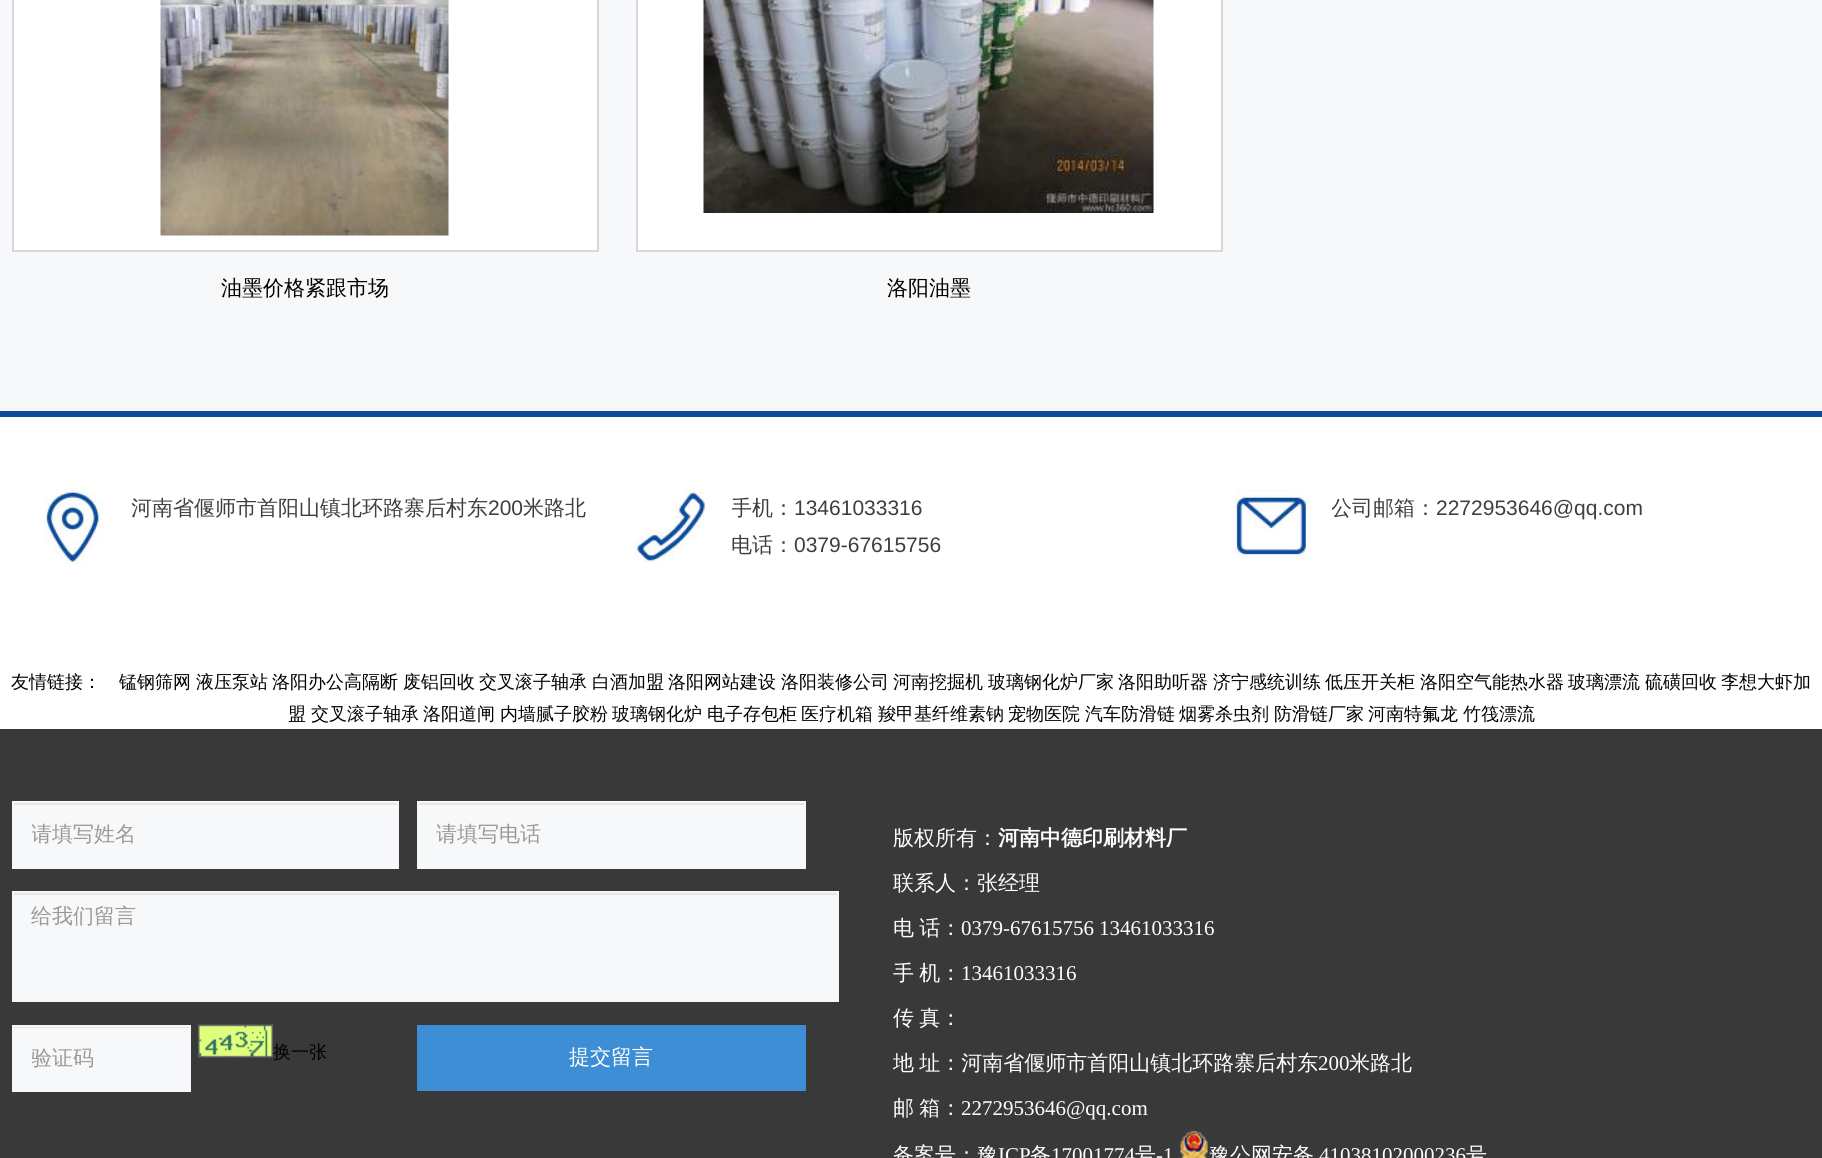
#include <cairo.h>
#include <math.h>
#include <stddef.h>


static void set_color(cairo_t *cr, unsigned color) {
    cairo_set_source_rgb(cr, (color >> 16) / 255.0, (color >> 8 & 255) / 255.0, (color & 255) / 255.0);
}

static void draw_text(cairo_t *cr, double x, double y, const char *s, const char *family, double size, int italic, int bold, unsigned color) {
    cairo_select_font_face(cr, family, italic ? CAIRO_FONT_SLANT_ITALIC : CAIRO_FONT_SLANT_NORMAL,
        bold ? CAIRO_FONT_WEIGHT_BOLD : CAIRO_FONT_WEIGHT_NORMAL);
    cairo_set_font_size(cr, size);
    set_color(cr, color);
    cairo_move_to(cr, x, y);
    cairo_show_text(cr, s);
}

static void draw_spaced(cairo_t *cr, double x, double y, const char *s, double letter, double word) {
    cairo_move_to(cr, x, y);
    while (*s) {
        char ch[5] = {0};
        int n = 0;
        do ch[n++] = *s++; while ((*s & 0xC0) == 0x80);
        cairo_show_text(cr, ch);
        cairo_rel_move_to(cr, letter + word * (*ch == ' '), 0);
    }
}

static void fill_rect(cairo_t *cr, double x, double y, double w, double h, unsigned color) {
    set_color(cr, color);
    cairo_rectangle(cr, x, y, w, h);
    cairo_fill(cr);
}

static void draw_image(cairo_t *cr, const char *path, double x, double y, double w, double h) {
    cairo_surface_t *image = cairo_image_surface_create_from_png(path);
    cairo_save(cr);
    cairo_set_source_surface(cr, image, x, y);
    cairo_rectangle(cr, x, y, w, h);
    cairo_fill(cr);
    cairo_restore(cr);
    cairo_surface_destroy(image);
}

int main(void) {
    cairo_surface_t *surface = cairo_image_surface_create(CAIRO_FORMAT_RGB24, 1822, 1158);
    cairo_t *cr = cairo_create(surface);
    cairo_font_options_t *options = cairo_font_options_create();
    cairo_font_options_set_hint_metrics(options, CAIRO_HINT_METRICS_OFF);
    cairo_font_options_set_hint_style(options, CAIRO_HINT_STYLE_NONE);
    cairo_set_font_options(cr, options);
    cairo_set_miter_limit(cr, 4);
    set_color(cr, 0xFFFFFF);
    cairo_paint(cr);
    fill_rect(cr, 0, 0, 1822, 411, 0xF7F8FA);
    set_color(cr, 0xFFFFFF);
    cairo_rectangle(cr, 13, -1, 585, 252);
    cairo_fill_preserve(cr);
    set_color(cr, 0xD7D8DB);
    cairo_stroke(cr);
    draw_image(cr, "assets/img1.png", 160, 0, 289, 236);
    draw_text(cr, 221, 295, "油墨价格紧跟市场", "WenQuanYi Zen Hei Medium", 21, 0, 0, 0x000000);
    set_color(cr, 0xFFFFFF);
    cairo_rectangle(cr, 637, -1, 585, 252);
    cairo_fill_preserve(cr);
    set_color(cr, 0xD7D8DB);
    cairo_stroke(cr);
    draw_image(cr, "assets/img2.png", 703, 0, 451, 213);
    draw_text(cr, 887, 295, "洛阳油墨", "WenQuanYi Zen Hei Medium", 21, 0, 0, 0x000000);
    fill_rect(cr, 0, 411, 1822, 6, 0x0D4B9B);
    draw_text(cr, 131, 515, "河南省偃师市首阳山镇北环路寨后村东", "WenQuanYi Zen Hei Medium", 21, 0, 0, 0x3E3E3E);
    fill_rect(cr, 131, 503, 1, 2, 0xFFFFFF);
    draw_image(cr, "assets/img3.png", 44, 489, 61, 75);
    draw_text(cr, 488, 515, "200", "Liberation Sans", 21, 0, 0, 0x3E3E3E);
    draw_text(cr, 523, 515, "米路北", "WenQuanYi Zen Hei Medium", 21, 0, 0, 0x3E3E3E);
    draw_text(cr, 731, 515, "手机：", "WenQuanYi Zen Hei Medium", 21, 0, 0, 0x3E3E3E);
    fill_rect(cr, 731, 508, 1, 2, 0xFFFFFF);
    draw_image(cr, "assets/img4.png", 634, 489, 71, 75);
    draw_text(cr, 794, 515, "13461033316", "Liberation Sans", 21, 0, 0, 0x3E3E3E);
    draw_text(cr, 731, 552, "电话：", "WenQuanYi Zen Hei Medium", 21, 0, 0, 0x3E3E3E);
    draw_text(cr, 794, 552, "0379-67615756", "Liberation Sans", 21, 0, 0, 0x3E3E3E);
    draw_text(cr, 1331, 515, "公司邮箱：", "WenQuanYi Zen Hei Medium", 21, 0, 0, 0x3E3E3E);
    fill_rect(cr, 1331, 508, 1, 2, 0xFFFFFF);
    draw_image(cr, "assets/img5.png", 1234, 489, 75, 70);
    draw_text(cr, 1436, 515, "2272953646@qq.com", "Liberation Sans", 21, 0, 0, 0x3E3E3E);
    fill_rect(cr, 0, 729, 1822, 429, 0x393939);
    draw_text(cr, 11, 688, "友情链接：", "WenQuanYi Zen Hei Medium", 18, 0, 0, 0x000000);
    draw_text(cr, 119, 688, "锰钢筛网", "WenQuanYi Zen Hei Medium", 18, 0, 0, 0x000000);
    draw_text(cr, 196, 688, "液压泵站", "WenQuanYi Zen Hei Medium", 18, 0, 0, 0x000000);
    draw_text(cr, 272, 688, "洛阳办公高隔断", "WenQuanYi Zen Hei Medium", 18, 0, 0, 0x000000);
    draw_text(cr, 403, 688, "废铝回收", "WenQuanYi Zen Hei Medium", 18, 0, 0, 0x000000);
    draw_text(cr, 479, 688, "交叉滚子轴承", "WenQuanYi Zen Hei Medium", 18, 0, 0, 0x000000);
    draw_text(cr, 592, 688, "白酒加盟", "WenQuanYi Zen Hei Medium", 18, 0, 0, 0x000000);
    draw_text(cr, 668, 688, "洛阳网站建设", "WenQuanYi Zen Hei Medium", 18, 0, 0, 0x000000);
    draw_text(cr, 781, 688, "洛阳装修公司", "WenQuanYi Zen Hei Medium", 18, 0, 0, 0x000000);
    draw_text(cr, 893, 688, "河南挖掘机", "WenQuanYi Zen Hei Medium", 18, 0, 0, 0x000000);
    draw_text(cr, 988, 688, "玻璃钢化炉厂家", "WenQuanYi Zen Hei Medium", 18, 0, 0, 0x000000);
    draw_text(cr, 1118, 688, "洛阳助听器", "WenQuanYi Zen Hei Medium", 18, 0, 0, 0x000000);
    draw_text(cr, 1213, 688, "济宁感统训练", "WenQuanYi Zen Hei Medium", 18, 0, 0, 0x000000);
    draw_text(cr, 1325, 688, "低压开关柜", "WenQuanYi Zen Hei Medium", 18, 0, 0, 0x000000);
    draw_text(cr, 1420, 688, "洛阳空气能热水器", "WenQuanYi Zen Hei Medium", 18, 0, 0, 0x000000);
    draw_text(cr, 1568, 688, "玻璃漂流", "WenQuanYi Zen Hei Medium", 18, 0, 0, 0x000000);
    draw_text(cr, 1645, 688, "硫磺回收", "WenQuanYi Zen Hei Medium", 18, 0, 0, 0x000000);
    draw_text(cr, 1721, 688, "李想大虾加", "WenQuanYi Zen Hei Medium", 18, 0, 0, 0x000000);
    draw_text(cr, 288, 720, "盟", "WenQuanYi Zen Hei Medium", 18, 0, 0, 0x000000);
    draw_text(cr, 311, 720, "交叉滚子轴承", "WenQuanYi Zen Hei Medium", 18, 0, 0, 0x000000);
    draw_text(cr, 423, 720, "洛阳道闸", "WenQuanYi Zen Hei Medium", 18, 0, 0, 0x000000);
    draw_text(cr, 500, 720, "内墙腻子胶粉", "WenQuanYi Zen Hei Medium", 18, 0, 0, 0x000000);
    draw_text(cr, 612, 720, "玻璃钢化炉", "WenQuanYi Zen Hei Medium", 18, 0, 0, 0x000000);
    draw_text(cr, 707, 720, "电子存包柜", "WenQuanYi Zen Hei Medium", 18, 0, 0, 0x000000);
    draw_text(cr, 801, 720, "医疗机箱", "WenQuanYi Zen Hei Medium", 18, 0, 0, 0x000000);
    draw_text(cr, 878, 720, "羧甲基纤维素钠", "WenQuanYi Zen Hei Medium", 18, 0, 0, 0x000000);
    draw_text(cr, 1008, 720, "宠物医院", "WenQuanYi Zen Hei Medium", 18, 0, 0, 0x000000);
    draw_text(cr, 1085, 720, "汽车防滑链", "WenQuanYi Zen Hei Medium", 18, 0, 0, 0x000000);
    draw_text(cr, 1179, 720, "烟雾杀虫剂", "WenQuanYi Zen Hei Medium", 18, 0, 0, 0x000000);
    draw_text(cr, 1274, 720, "防滑链厂家", "WenQuanYi Zen Hei Medium", 18, 0, 0, 0x000000);
    draw_text(cr, 1368, 720, "河南特氟龙", "WenQuanYi Zen Hei Medium", 18, 0, 0, 0x000000);
    draw_text(cr, 1463, 720, "竹筏漂流", "WenQuanYi Zen Hei Medium", 18, 0, 0, 0x000000);
    fill_rect(cr, 14, 805, 383, 62, 0xF7F8FA);
    fill_rect(cr, 14, 803, 384, 2, 0xE4E5E7);
    cairo_rectangle(cr, 13, 802, 385, 66);
    set_color(cr, 0xF7F8FA);
    cairo_stroke(cr);
    cairo_save(cr);
    cairo_rectangle(cr, 32, 822, 348, 27);
    cairo_clip(cr);
    draw_text(cr, 31, 841, "请填写姓名", "WenQuanYi Zen Hei Medium", 21, 0, 0, 0x999999);
    cairo_restore(cr);
    fill_rect(cr, 417, 801, 389, 68, 0xF7F8FA);
    fill_rect(cr, 419, 803, 385, 2, 0xE4E5E7);
    draw_text(cr, 436, 841, "请填写电话", "WenQuanYi Zen Hei Medium", 21, 0, 0, 0x999999);
    fill_rect(cr, 12, 891, 827, 111, 0xF7F8FA);
    fill_rect(cr, 14, 893, 823, 2, 0xE4E5E7);
    draw_text(cr, 31, 923, "给我们留言", "WenQuanYi Zen Hei Medium", 21, 0, 0, 0x999999);
    fill_rect(cr, 14, 1028, 175, 62, 0xF7F8FA);
    fill_rect(cr, 14, 1027, 175, 1, 0xE4E5E7);
    cairo_rectangle(cr, 13, 1026, 177, 65);
    set_color(cr, 0xF7F8FA);
    cairo_stroke(cr);
    cairo_save(cr);
    cairo_rectangle(cr, 32, 1046, 139, 27);
    cairo_clip(cr);
    draw_text(cr, 31, 1065, "验证码", "WenQuanYi Zen Hei Medium", 21, 0, 0, 0x999999);
    cairo_restore(cr);
    draw_image(cr, "assets/img6.png", 198, 1024, 75, 34);
    draw_text(cr, 273, 1058, "换一张", "WenQuanYi Zen Hei Medium", 18, 0, 0, 0x000000);
    fill_rect(cr, 417, 1025, 389, 66, 0x3E8ED6);
    draw_text(cr, 569, 1064, "提交留言", "WenQuanYi Zen Hei Medium", 21, 0, 0, 0xFFFFFF);
    draw_text(cr, 893, 845, "版权所有：", "WenQuanYi Zen Hei Medium", 21, 0, 0, 0xFFFFFF);
    draw_text(cr, 998, 845, "河南中德印刷材料厂", "WenQuanYi Zen Hei", 21, 0, 1, 0xFFFFFF);
    draw_text(cr, 893, 890, "联系人：张经理", "WenQuanYi Zen Hei Medium", 21, 0, 0, 0xFFFFFF);
    draw_spaced(cr, 893, 935, "电 话：", 0, -1);
    draw_text(cr, 961, 935, "0379-67615756", "Liberation Serif", 21, 0, 0, 0xFFFFFF);
    draw_text(cr, 1099, 935, "13461033316", "Liberation Serif", 21, 0, 0, 0xFFFFFF);
    cairo_select_font_face(cr, "WenQuanYi Zen Hei Medium", CAIRO_FONT_SLANT_NORMAL, CAIRO_FONT_WEIGHT_NORMAL);
    draw_spaced(cr, 893, 980, "手 机：", 0, -1);
    draw_text(cr, 961, 980, "13461033316", "Liberation Serif", 21, 0, 0, 0xFFFFFF);
    cairo_select_font_face(cr, "WenQuanYi Zen Hei Medium", CAIRO_FONT_SLANT_NORMAL, CAIRO_FONT_WEIGHT_NORMAL);
    draw_spaced(cr, 893, 1025, "传 真：", 0, -1);
    draw_spaced(cr, 893, 1070, "地 址：河南省偃师市首阳山镇北环路寨后村东", 0, -1);
    draw_text(cr, 1318, 1070, "200", "Liberation Serif", 21, 0, 0, 0xFFFFFF);
    draw_text(cr, 1349, 1070, "米路北", "WenQuanYi Zen Hei Medium", 21, 0, 0, 0xFFFFFF);
    draw_spaced(cr, 893, 1115, "邮 箱：", 0, -1);
    draw_text(cr, 961, 1115, "2272953646@qq.com", "Liberation Serif", 21, 0, 0, 0xFFFFFF);
    draw_text(cr, 893, 1162, "备案号：豫", "WenQuanYi Zen Hei Medium", 21, 0, 0, 0xFFFFFF);
    draw_text(cr, 998, 1162, "ICP", "Liberation Serif", 21, 0, 0, 0xFFFFFF);
    draw_text(cr, 1030, 1162, "备", "WenQuanYi Zen Hei Medium", 21, 0, 0, 0xFFFFFF);
    draw_text(cr, 1051, 1162, "17001774", "Liberation Serif", 21, 0, 0, 0xFFFFFF);
    draw_text(cr, 1135, 1162, "号", "WenQuanYi Zen Hei Medium", 21, 0, 0, 0xFFFFFF);
    draw_text(cr, 1156, 1162, "-1", "Liberation Serif", 21, 0, 0, 0xFFFFFF);
    draw_image(cr, "assets/img7.png", 1180, 1131, 28, 27);
    draw_text(cr, 1209, 1162, "豫公网安备", "WenQuanYi Zen Hei Medium", 21, 0, 0, 0xFFFFFF);
    draw_text(cr, 1319, 1162, "41038102000236", "Liberation Serif", 21, 0, 0, 0xFFFFFF);
    draw_text(cr, 1466, 1162, "号", "WenQuanYi Zen Hei Medium", 21, 0, 0, 0xFFFFFF);
    cairo_surface_write_to_png(surface, "output.png");
    cairo_font_options_destroy(options);
    cairo_destroy(cr);
    cairo_surface_destroy(surface);
    return 0;
}
